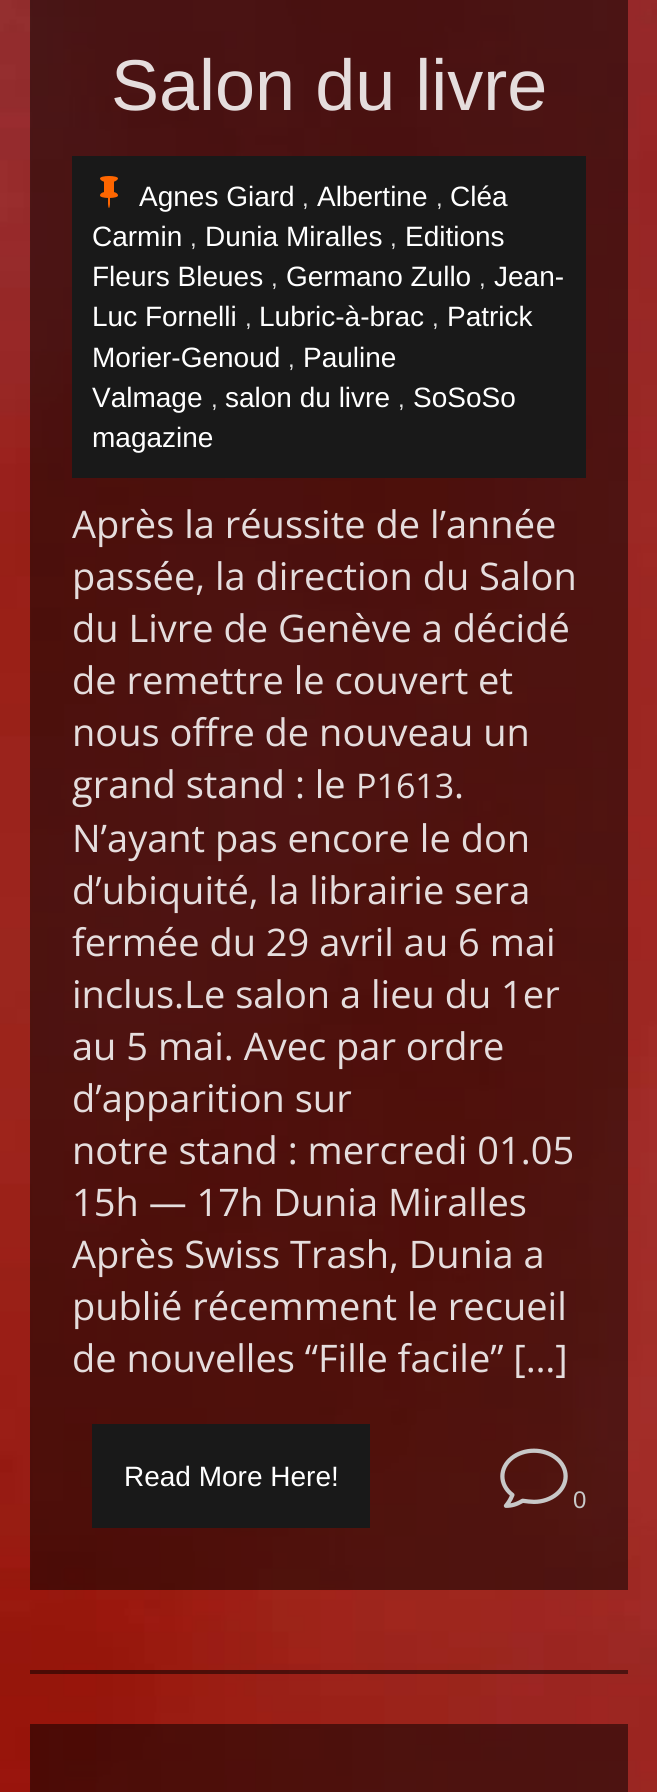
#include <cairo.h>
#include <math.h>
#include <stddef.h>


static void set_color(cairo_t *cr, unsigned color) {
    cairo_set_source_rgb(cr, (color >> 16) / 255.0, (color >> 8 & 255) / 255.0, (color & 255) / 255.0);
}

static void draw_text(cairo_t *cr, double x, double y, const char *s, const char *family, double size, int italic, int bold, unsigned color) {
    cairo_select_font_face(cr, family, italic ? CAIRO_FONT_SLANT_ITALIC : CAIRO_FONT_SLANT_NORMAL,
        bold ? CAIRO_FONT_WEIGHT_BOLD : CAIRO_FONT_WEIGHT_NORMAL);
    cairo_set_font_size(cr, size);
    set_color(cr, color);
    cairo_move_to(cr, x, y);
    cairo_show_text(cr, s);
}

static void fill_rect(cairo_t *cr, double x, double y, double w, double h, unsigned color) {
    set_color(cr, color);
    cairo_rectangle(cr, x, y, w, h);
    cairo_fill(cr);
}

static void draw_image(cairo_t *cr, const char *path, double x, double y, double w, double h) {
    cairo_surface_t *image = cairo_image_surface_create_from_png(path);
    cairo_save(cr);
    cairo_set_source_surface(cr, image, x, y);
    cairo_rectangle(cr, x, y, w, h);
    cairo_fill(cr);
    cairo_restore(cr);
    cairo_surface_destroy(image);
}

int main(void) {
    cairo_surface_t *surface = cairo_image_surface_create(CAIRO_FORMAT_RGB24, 657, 1792);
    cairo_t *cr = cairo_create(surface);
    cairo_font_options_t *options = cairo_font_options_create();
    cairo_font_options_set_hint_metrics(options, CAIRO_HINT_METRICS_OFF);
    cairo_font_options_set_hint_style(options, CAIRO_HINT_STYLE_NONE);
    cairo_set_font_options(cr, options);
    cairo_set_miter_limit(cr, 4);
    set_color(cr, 0xFFFFFF);
    cairo_paint(cr);
    draw_image(cr, "assets/img1.png", 0, 0, 657, 1792);
    cairo_set_source_rgba(cr, 0, 0, 0, 0.5);
    cairo_rectangle(cr, 30, 0, 598, 1590);
    cairo_fill(cr);
    draw_text(cr, 111, 110, "Salon du livre", "Liberation Sans", 72, 0, 0, 0xE5DDDD);
    fill_rect(cr, 72, 156, 514, 322, 0x191919);
    draw_image(cr, "assets/img2.png", 100, 176, 18, 32);
    draw_text(cr, 139, 206, "Agnes Giard", "Liberation Sans", 28, 0, 0, 0xFFFFFF);
    draw_text(cr, 302, 206, ",", "Liberation Sans", 24, 0, 0, 0xE6E6E6);
    draw_text(cr, 317, 206, "Albertine", "Liberation Sans", 28, 0, 0, 0xFFFFFF);
    draw_text(cr, 436, 206, ",", "Liberation Sans", 24, 0, 0, 0xE6E6E6);
    draw_text(cr, 450, 206, "Cléa", "Liberation Sans", 28, 0, 0, 0xFFFFFF);
    draw_text(cr, 92, 246, "Carmin", "Liberation Sans", 28, 0, 0, 0xFFFFFF);
    draw_text(cr, 190, 246, ",", "Liberation Sans", 24, 0, 0, 0xE6E6E6);
    draw_text(cr, 205, 246, "Dunia Miralles", "Liberation Sans", 28, 0, 0, 0xFFFFFF);
    draw_text(cr, 390, 246, ",", "Liberation Sans", 24, 0, 0, 0xE6E6E6);
    draw_text(cr, 405, 246, "Editions", "Liberation Sans", 28, 0, 0, 0xFFFFFF);
    draw_text(cr, 92, 286, "Fleurs Bleues", "Liberation Sans", 28, 0, 0, 0xFFFFFF);
    draw_text(cr, 271, 286, ",", "Liberation Sans", 24, 0, 0, 0xE6E6E6);
    draw_text(cr, 286, 286, "Germano Zullo", "Liberation Sans", 28, 0, 0, 0xFFFFFF);
    draw_text(cr, 479, 286, ",", "Liberation Sans", 24, 0, 0, 0xE6E6E6);
    draw_text(cr, 494, 286, "Jean-", "Liberation Sans", 28, 0, 0, 0xFFFFFF);
    draw_text(cr, 92, 326, "Luc Fornelli", "Liberation Sans", 28, 0, 0, 0xFFFFFF);
    draw_text(cr, 245, 326, ",", "Liberation Sans", 24, 0, 0, 0xE6E6E6);
    draw_text(cr, 259, 326, "Lubric-à-brac", "Liberation Sans", 28, 0, 0, 0xFFFFFF);
    draw_text(cr, 432, 326, ",", "Liberation Sans", 24, 0, 0, 0xE6E6E6);
    draw_text(cr, 447, 326, "Patrick", "Liberation Sans", 28, 0, 0, 0xFFFFFF);
    draw_text(cr, 92, 367, "Morier-Genoud", "Liberation Sans", 28, 0, 0, 0xFFFFFF);
    draw_text(cr, 288, 367, ",", "Liberation Sans", 24, 0, 0, 0xE6E6E6);
    draw_text(cr, 303, 367, "Pauline", "Liberation Sans", 28, 0, 0, 0xFFFFFF);
    draw_text(cr, 92, 407, "Valmage", "Liberation Sans", 28, 0, 0, 0xFFFFFF);
    draw_text(cr, 211, 407, ",", "Liberation Sans", 24, 0, 0, 0xE6E6E6);
    draw_text(cr, 225, 407, "salon du livre", "Liberation Sans", 28, 0, 0, 0xFFFFFF);
    draw_text(cr, 398, 407, ",", "Liberation Sans", 24, 0, 0, 0xE6E6E6);
    draw_text(cr, 413, 407, "SoSoSo", "Liberation Sans", 28, 0, 0, 0xFFFFFF);
    draw_text(cr, 92, 447, "magazine", "Liberation Sans", 28, 0, 0, 0xFFFFFF);
    draw_text(cr, 72, 538, "Après la réussite de l’année", "Open Sans", 38, 0, 0, 0xE5DDDD);
    draw_text(cr, 72, 590, "passée, la direction du Salon", "Open Sans", 38, 0, 0, 0xE5DDDD);
    draw_text(cr, 72, 642, "du Livre de Genève a décidé", "Open Sans", 38, 0, 0, 0xE5DDDD);
    draw_text(cr, 72, 694, "de remettre le couvert et", "Open Sans", 38, 0, 0, 0xE5DDDD);
    draw_text(cr, 72, 746, "nous offre de nouveau un", "Open Sans", 38, 0, 0, 0xE5DDDD);
    draw_text(cr, 72, 798, "grand stand : le", "Open Sans", 38, 0, 0, 0xE5DDDD);
    draw_text(cr, 356, 798, "P1613", "Open Sans", 34, 0, 0, 0xE5DDDD);
    draw_text(cr, 454, 798, ".", "Open Sans", 38, 0, 0, 0xE5DDDD);
    draw_text(cr, 72, 852, "N’ayant pas encore le don", "Open Sans", 38, 0, 0, 0xE5DDDD);
    draw_text(cr, 72, 904, "d’ubiquité, la librairie sera", "Open Sans", 38, 0, 0, 0xE5DDDD);
    draw_text(cr, 72, 956, "fermée du 29 avril au 6 mai", "Open Sans", 38, 0, 0, 0xE5DDDD);
    draw_text(cr, 72, 1008, "inclus.Le salon a lieu du 1er", "Open Sans", 38, 0, 0, 0xE5DDDD);
    draw_text(cr, 72, 1060, "au 5 mai. Avec par ordre", "Open Sans", 38, 0, 0, 0xE5DDDD);
    draw_text(cr, 72, 1112, "d’apparition sur", "Open Sans", 38, 0, 0, 0xE5DDDD);
    draw_text(cr, 72, 1164, "notre stand : mercredi 01.05", "Open Sans", 38, 0, 0, 0xE5DDDD);
    draw_text(cr, 72, 1216, "15h — 17h Dunia Miralles", "Open Sans", 38, 0, 0, 0xE5DDDD);
    draw_text(cr, 72, 1268, "Après Swiss Trash, Dunia a", "Open Sans", 38, 0, 0, 0xE5DDDD);
    draw_text(cr, 72, 1320, "publié récemment le recueil", "Open Sans", 38, 0, 0, 0xE5DDDD);
    draw_text(cr, 72, 1372, "de nouvelles “Fille facile” […]", "Open Sans", 38, 0, 0, 0xE5DDDD);
    fill_rect(cr, 92, 1424, 278, 104, 0x191919);
    draw_text(cr, 124, 1486, "Read More Here!", "Liberation Sans", 28, 0, 0, 0xFFFFFF);
    draw_image(cr, "assets/img3.png", 500, 1448, 68, 60);
    draw_text(cr, 573, 1508, "0", "Liberation Sans", 24, 0, 0, 0xC8C8C8);
    cairo_set_source_rgba(cr, 0, 0, 0, 0.5);
    cairo_rectangle(cr, 30, 1670, 598, 4);
    cairo_fill(cr);
    cairo_rectangle(cr, 30, 1724, 598, 68);
    cairo_fill(cr);
    cairo_surface_write_to_png(surface, "output.png");
    cairo_font_options_destroy(options);
    cairo_destroy(cr);
    cairo_surface_destroy(surface);
    return 0;
}
